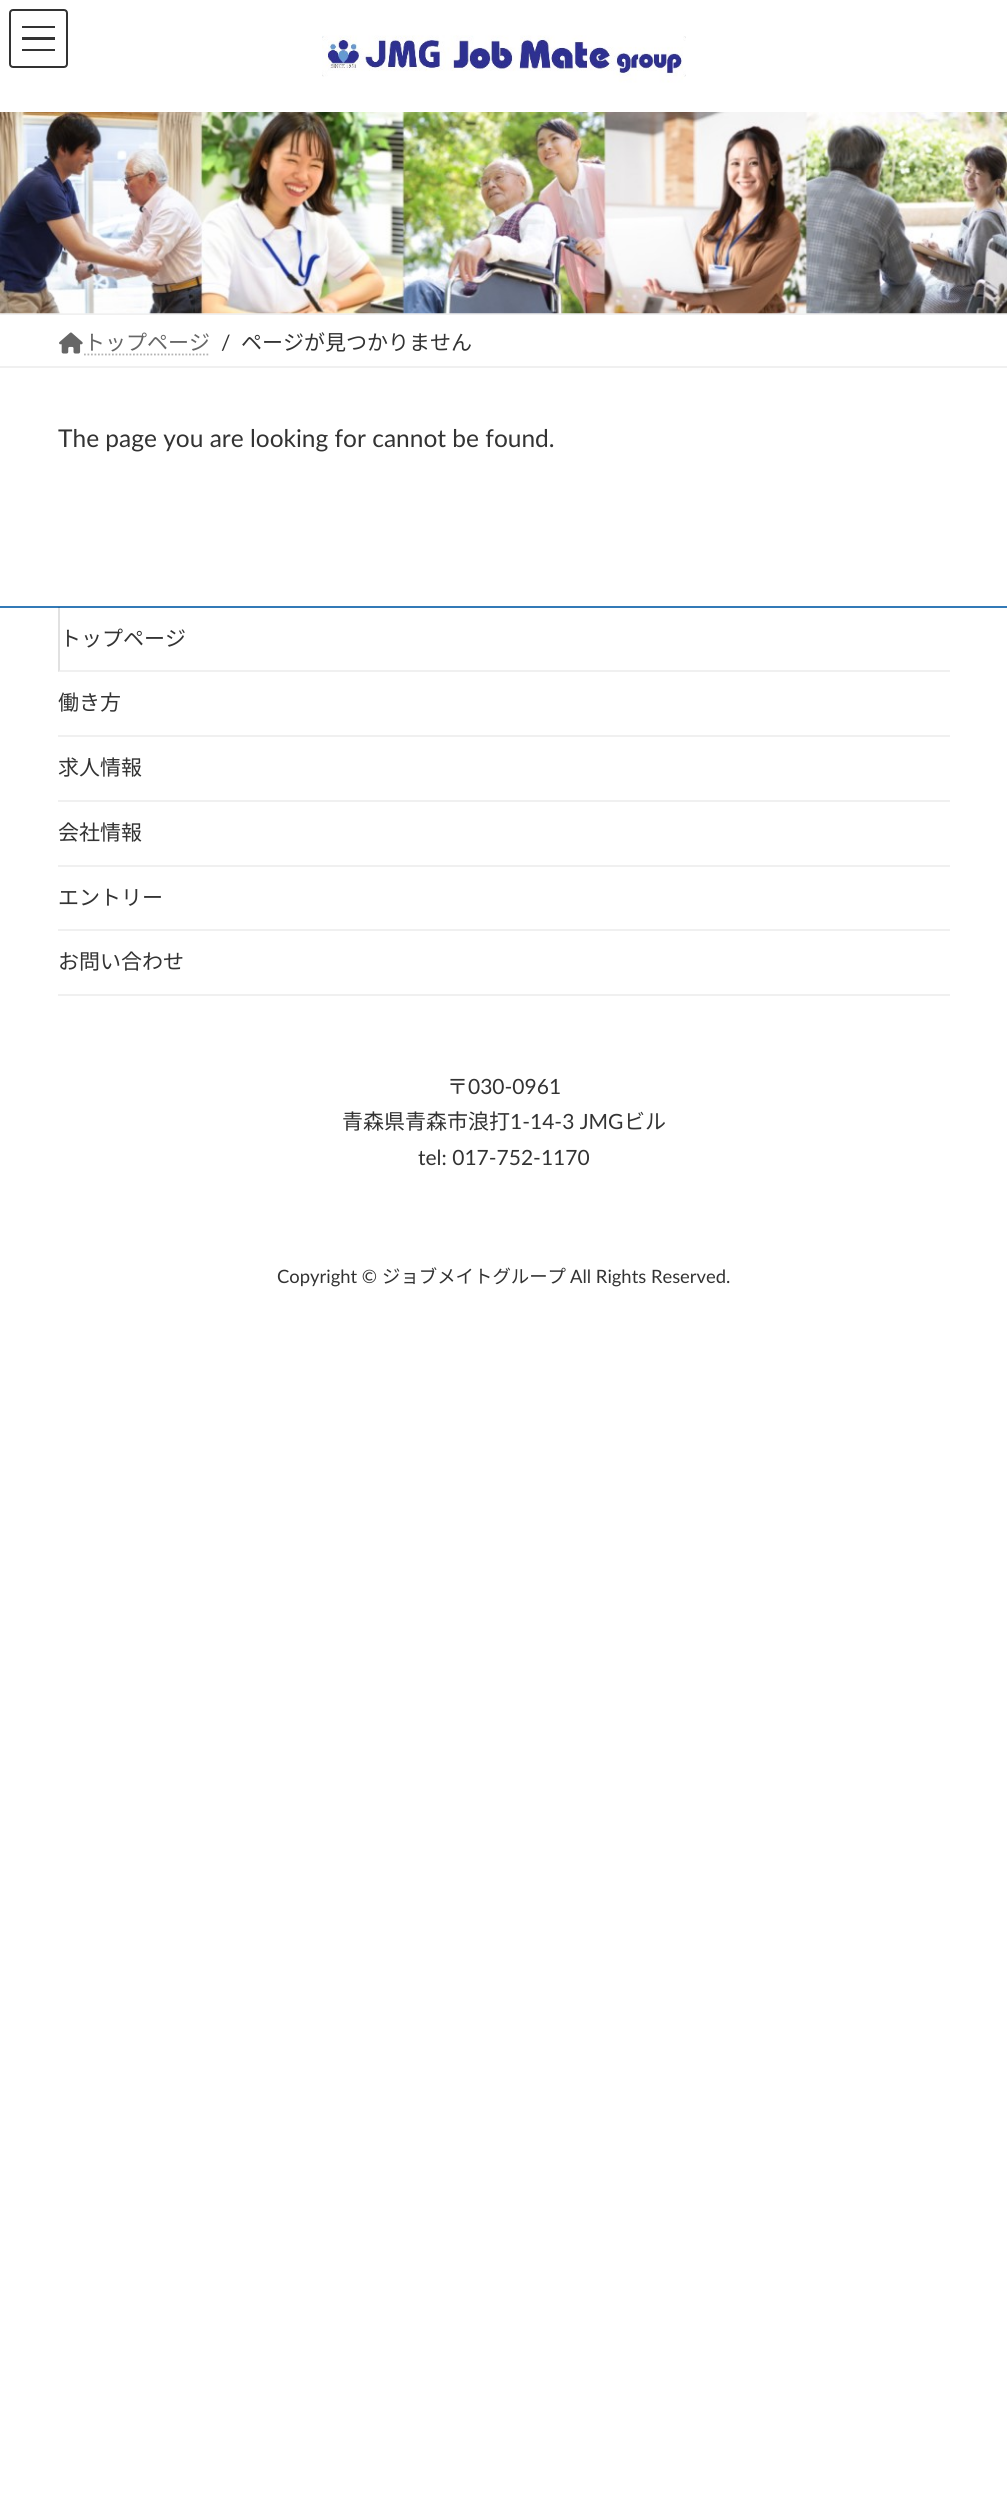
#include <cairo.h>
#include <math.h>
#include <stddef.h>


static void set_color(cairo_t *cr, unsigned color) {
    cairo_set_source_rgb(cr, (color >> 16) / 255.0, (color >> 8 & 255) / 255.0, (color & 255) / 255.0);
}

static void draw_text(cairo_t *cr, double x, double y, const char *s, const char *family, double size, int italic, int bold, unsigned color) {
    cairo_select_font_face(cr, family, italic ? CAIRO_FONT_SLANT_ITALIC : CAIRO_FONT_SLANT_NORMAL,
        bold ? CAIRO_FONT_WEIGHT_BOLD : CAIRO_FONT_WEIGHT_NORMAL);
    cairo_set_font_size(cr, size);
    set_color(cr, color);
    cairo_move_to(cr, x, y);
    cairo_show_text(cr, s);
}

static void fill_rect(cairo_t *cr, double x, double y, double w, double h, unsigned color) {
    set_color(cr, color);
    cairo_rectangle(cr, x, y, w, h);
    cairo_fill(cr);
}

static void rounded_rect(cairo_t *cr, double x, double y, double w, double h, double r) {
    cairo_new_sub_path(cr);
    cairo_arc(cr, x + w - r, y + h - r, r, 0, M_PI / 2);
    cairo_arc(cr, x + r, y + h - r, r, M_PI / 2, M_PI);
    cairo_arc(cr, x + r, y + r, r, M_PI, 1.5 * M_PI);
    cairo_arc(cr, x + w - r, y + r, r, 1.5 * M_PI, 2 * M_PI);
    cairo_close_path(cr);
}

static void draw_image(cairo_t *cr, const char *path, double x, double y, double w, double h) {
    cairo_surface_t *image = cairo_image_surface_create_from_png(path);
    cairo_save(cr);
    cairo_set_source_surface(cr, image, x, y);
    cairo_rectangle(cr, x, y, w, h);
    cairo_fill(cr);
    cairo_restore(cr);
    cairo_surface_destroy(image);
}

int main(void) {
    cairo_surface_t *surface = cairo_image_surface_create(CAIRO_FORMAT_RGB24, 1007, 2518);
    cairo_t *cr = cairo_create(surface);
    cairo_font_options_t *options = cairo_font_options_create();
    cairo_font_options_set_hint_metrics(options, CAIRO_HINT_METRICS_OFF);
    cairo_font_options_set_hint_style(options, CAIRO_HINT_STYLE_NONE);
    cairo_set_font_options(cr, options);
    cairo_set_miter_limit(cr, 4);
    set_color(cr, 0xFFFFFF);
    cairo_paint(cr);
    fill_rect(cr, 22, 26, 33, 2, 0x333333);
    fill_rect(cr, 22, 37, 33, 3, 0x333333);
    fill_rect(cr, 22, 49, 33, 2, 0x333333);
    rounded_rect(cr, 10, 10, 57, 57, 3);
    cairo_stroke(cr);
    draw_image(cr, "assets/img1.png", 322, 35, 364, 48);
    fill_rect(cr, 0, 313, 1007, 2, 0xF0F0F0);
    draw_image(cr, "assets/img2.png", 0, 112, 1007, 202);
    fill_rect(cr, 0, 366, 1007, 2, 0xF0F0F0);
    draw_image(cr, "assets/img3.png", 59, 332, 24, 22);
    draw_text(cr, 84, 350, "トップページ", "Noto Sans JP", 21, 0, 0, 0x666666);
    cairo_new_path(cr);
    cairo_move_to(cr, 84, 354.5);
    cairo_line_to(cr, 210, 354.5);
    set_color(cr, 0xB3B3B3);
    cairo_set_line_width(cr, 1.8);
    cairo_set_dash(cr, (double[]){1.75, 1.75}, 2, 0);
    cairo_stroke(cr);
    draw_text(cr, 221, 350, "/", "Lato", 21, 0, 0, 0x333333);
    draw_text(cr, 241, 350, "ページが見つかりません", "Noto Sans JP", 21, 0, 0, 0x333333);
    draw_text(cr, 58, 447, "The page you are looking for cannot be found.", "Lato", 24.5, 0, 0, 0x333333);
    fill_rect(cr, 0, 606, 1007, 2, 0x337AB7);
    set_color(cr, 0xF0F0F0);
    cairo_new_path(cr);
    cairo_move_to(cr, 950, 672);
    cairo_line_to(cr, 58, 672);
    cairo_line_to(cr, 60, 670);
    cairo_line_to(cr, 950, 670);
    cairo_close_path(cr);
    cairo_fill(cr);
    cairo_set_source_rgba(cr, 0, 0, 0, 0.12);
    cairo_new_path(cr);
    cairo_move_to(cr, 58, 672);
    cairo_line_to(cr, 58, 607);
    cairo_line_to(cr, 60, 607);
    cairo_line_to(cr, 60, 670);
    cairo_close_path(cr);
    cairo_fill(cr);
    draw_text(cr, 60, 646, "トップページ", "Noto Sans JP", 21, 0, 0, 0x333333);
    fill_rect(cr, 58, 735, 892, 2, 0xF0F0F0);
    draw_text(cr, 58, 710, "働き方", "Noto Sans JP", 21, 0, 0, 0x333333);
    fill_rect(cr, 58, 800, 892, 2, 0xF0F0F0);
    draw_text(cr, 58, 775, "求人情報", "Noto Sans JP", 21, 0, 0, 0x333333);
    fill_rect(cr, 58, 865, 892, 2, 0xF0F0F0);
    draw_text(cr, 58, 840, "会社情報", "Noto Sans JP", 21, 0, 0, 0x333333);
    fill_rect(cr, 58, 929, 892, 2, 0xF0F0F0);
    draw_text(cr, 58, 905, "エントリー", "Noto Sans JP", 21, 0, 0, 0x333333);
    fill_rect(cr, 58, 994, 892, 2, 0xF0F0F0);
    draw_text(cr, 58, 969, "お問い合わせ", "Noto Sans JP", 21, 0, 0, 0x333333);
    draw_text(cr, 447, 1094, "〒", "Noto Sans JP", 21, 0, 0, 0x333333);
    draw_text(cr, 468, 1094, "030-0961", "Lato", 21, 0, 0, 0x333333);
    draw_text(cr, 342, 1129, "青森県青森市浪打", "Noto Sans JP", 21, 0, 0, 0x333333);
    draw_text(cr, 510, 1129, "1-14-3 JMG", "Lato", 21, 0, 0, 0x333333);
    draw_text(cr, 624, 1129, "ビル", "Noto Sans JP", 21, 0, 0, 0x333333);
    draw_text(cr, 418, 1165, "tel: 017-752-1170", "Lato", 21, 0, 0, 0x333333);
    draw_text(cr, 277, 1283, "Copyright ©", "Lato", 18.4, 0, 0, 0x333333);
    draw_text(cr, 382, 1283, "ジョブメイトグループ", "Noto Sans JP", 18.4, 0, 0, 0x333333);
    draw_text(cr, 570, 1283, "All Rights Reserved.", "Lato", 18.4, 0, 0, 0x333333);
    cairo_surface_write_to_png(surface, "output.png");
    cairo_font_options_destroy(options);
    cairo_destroy(cr);
    cairo_surface_destroy(surface);
    return 0;
}
